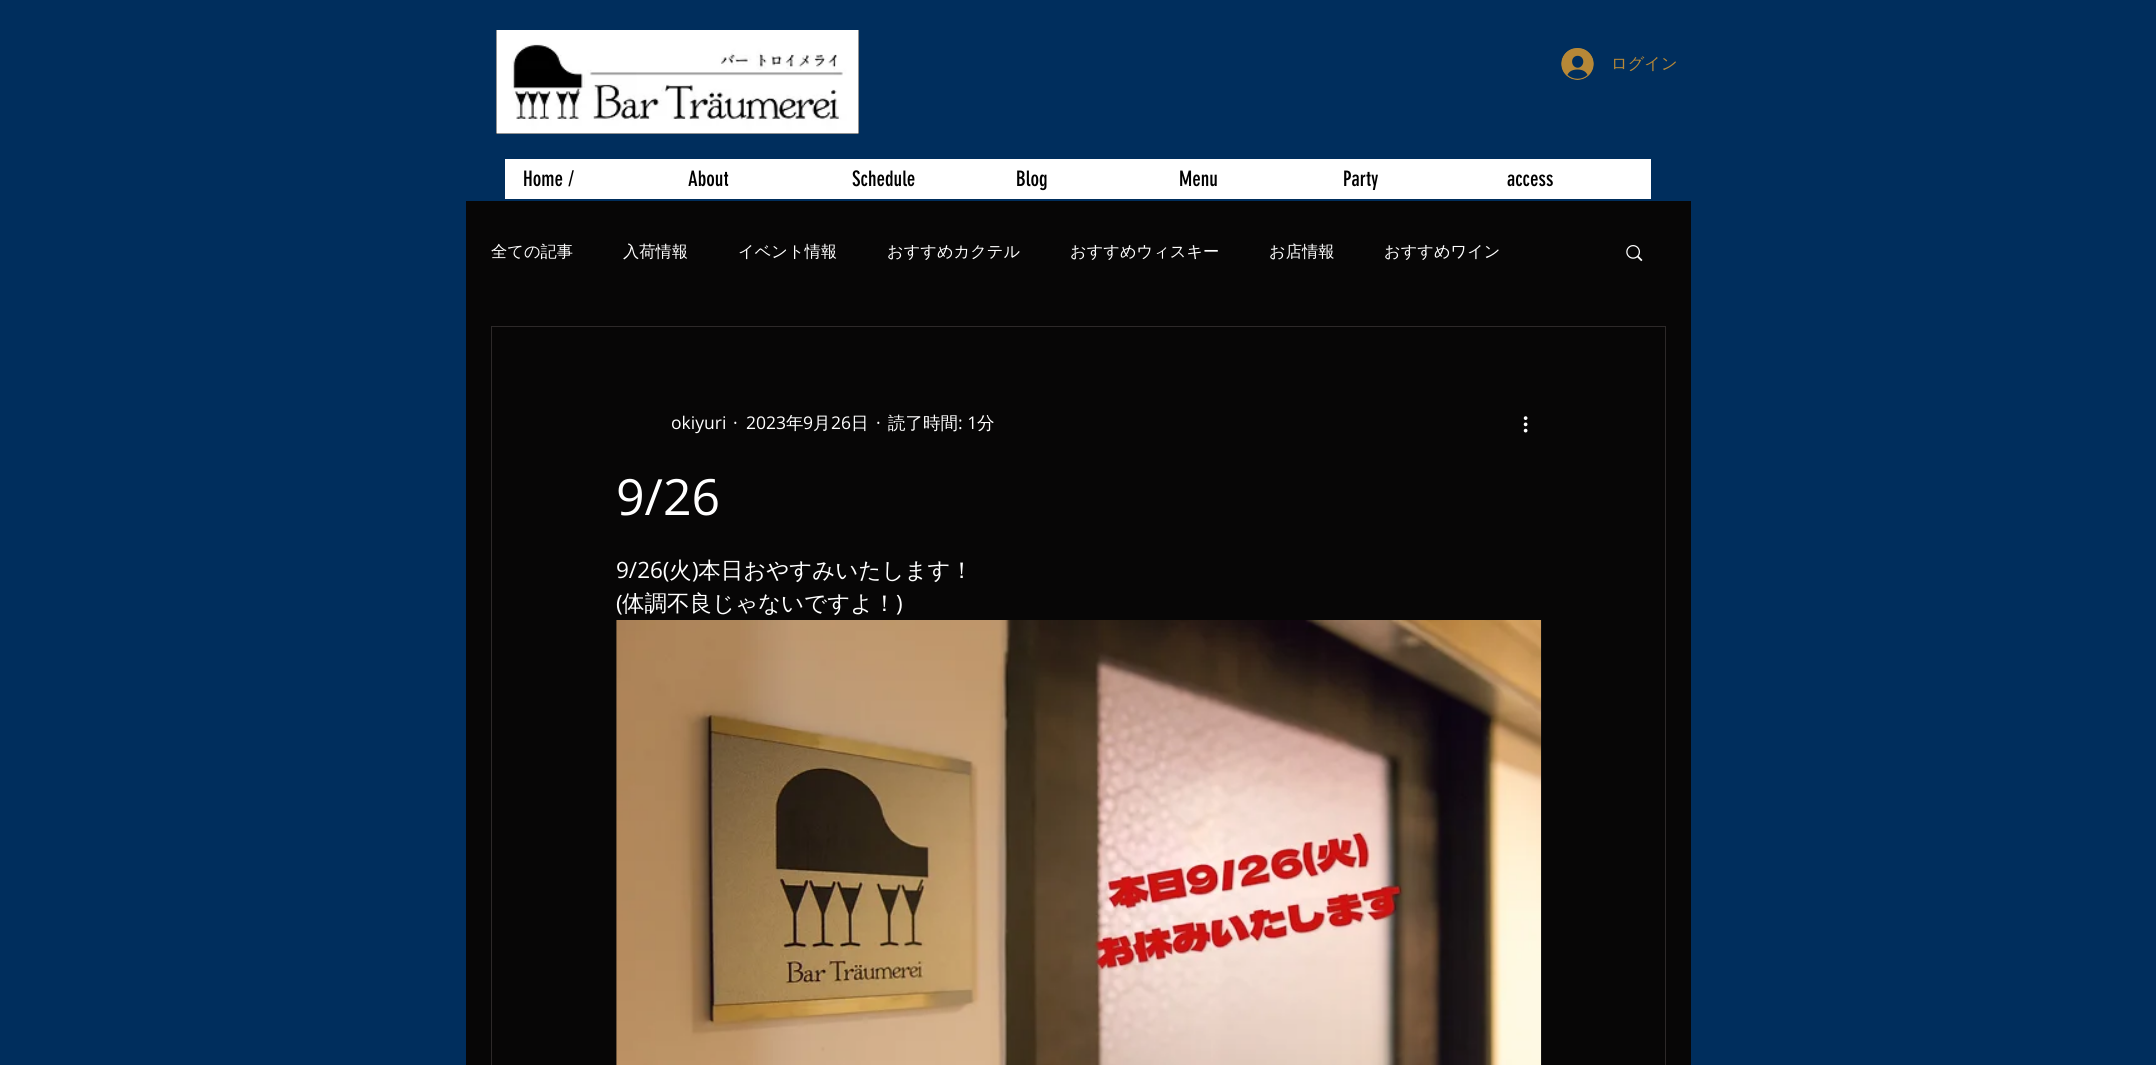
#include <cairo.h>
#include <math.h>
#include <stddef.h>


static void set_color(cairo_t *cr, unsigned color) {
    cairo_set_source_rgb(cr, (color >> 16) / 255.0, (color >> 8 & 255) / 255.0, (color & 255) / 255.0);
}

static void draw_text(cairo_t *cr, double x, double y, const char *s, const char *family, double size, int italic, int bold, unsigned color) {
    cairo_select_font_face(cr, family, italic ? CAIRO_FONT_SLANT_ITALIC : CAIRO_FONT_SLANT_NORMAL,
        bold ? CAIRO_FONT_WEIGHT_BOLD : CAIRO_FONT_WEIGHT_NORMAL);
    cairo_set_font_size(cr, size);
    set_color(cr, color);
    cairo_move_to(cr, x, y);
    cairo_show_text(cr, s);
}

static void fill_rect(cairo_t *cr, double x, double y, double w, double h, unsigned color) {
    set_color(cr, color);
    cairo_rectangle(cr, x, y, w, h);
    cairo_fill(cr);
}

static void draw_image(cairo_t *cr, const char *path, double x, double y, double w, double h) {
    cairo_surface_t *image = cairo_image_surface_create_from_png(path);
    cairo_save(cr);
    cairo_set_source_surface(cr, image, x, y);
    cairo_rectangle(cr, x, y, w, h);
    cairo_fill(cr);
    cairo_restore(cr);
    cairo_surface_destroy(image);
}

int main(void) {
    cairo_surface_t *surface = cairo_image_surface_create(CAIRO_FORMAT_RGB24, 2156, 1065);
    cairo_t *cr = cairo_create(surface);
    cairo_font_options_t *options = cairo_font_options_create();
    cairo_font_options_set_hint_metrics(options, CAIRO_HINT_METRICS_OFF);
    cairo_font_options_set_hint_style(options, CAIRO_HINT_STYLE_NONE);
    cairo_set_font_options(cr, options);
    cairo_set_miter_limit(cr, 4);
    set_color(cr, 0x002E5D);
    cairo_paint(cr);
    fill_rect(cr, 496, 30, 363, 104, 0x070606);
    draw_image(cr, "assets/img1.png", 496, 30, 363, 104);
    draw_image(cr, "assets/img2.png", 1561, 48, 33, 32);
    draw_text(cr, 1611, 69, "ログイン", "WenQuanYi Zen Hei Medium", 16.25, 0, 0, 0xB78837);
    fill_rect(cr, 505, 159, 1146, 40, 0xFFFFFF);
    draw_text(cr, 523, 186, "Home /", "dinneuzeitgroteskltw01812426", 21, 0, 0, 0x000000);
    draw_text(cr, 688, 186, "About", "dinneuzeitgroteskltw01812426", 21, 0, 0, 0x000000);
    draw_text(cr, 852, 186, "Schedule", "dinneuzeitgroteskltw01812426", 21, 0, 0, 0x000000);
    draw_text(cr, 1016, 186, "Blog", "dinneuzeitgroteskltw01812426", 21, 0, 0, 0x000000);
    draw_text(cr, 1179, 186, "Menu", "dinneuzeitgroteskltw01812426", 21, 0, 0, 0x000000);
    draw_text(cr, 1343, 186, "Party", "dinneuzeitgroteskltw01812426", 21, 0, 0, 0x000000);
    draw_text(cr, 1507, 186, "access", "dinneuzeitgroteskltw01812426", 21, 0, 0, 0x000000);
    fill_rect(cr, 466, 201, 1225, 864, 0x070606);
    draw_text(cr, 491, 257, "全ての記事", "WenQuanYi Zen Hei Medium", 16.25, 0, 0, 0xFFFFFF);
    draw_text(cr, 623, 257, "入荷情報", "WenQuanYi Zen Hei Medium", 16.25, 0, 0, 0xFFFFFF);
    draw_text(cr, 738, 257, "イベント情報", "WenQuanYi Zen Hei Medium", 16.25, 0, 0, 0xFFFFFF);
    draw_text(cr, 887, 257, "おすすめカクテル", "WenQuanYi Zen Hei Medium", 16.25, 0, 0, 0xFFFFFF);
    draw_text(cr, 1070, 257, "おすすめウィスキー", "WenQuanYi Zen Hei Medium", 16.25, 0, 0, 0xFFFFFF);
    draw_text(cr, 1269, 257, "お店情報", "WenQuanYi Zen Hei Medium", 16.25, 0, 0, 0xFFFFFF);
    draw_text(cr, 1384, 257, "おすすめワイン", "WenQuanYi Zen Hei Medium", 16.25, 0, 0, 0xFFFFFF);
    draw_image(cr, "assets/img3.png", 1626, 245, 17, 17);
    cairo_rectangle(cr, 491.5, 326.5, 1174, 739);
    set_color(cr, 0x2D2929);
    cairo_set_line_width(cr, 1);
    cairo_stroke(cr);
    draw_text(cr, 671, 429, "okiyuri", "Open Sans", 17.5, 0, 0, 0xFFFFFF);
    draw_text(cr, 733, 429, "·", "Open Sans", 17.5, 0, 0, 0xFFFFFF);
    draw_text(cr, 746, 429, "2023", "Open Sans", 17.5, 0, 0, 0xFFFFFF);
    draw_text(cr, 786, 429, "年", "WenQuanYi Zen Hei Medium", 17.5, 0, 0, 0xFFFFFF);
    draw_text(cr, 803, 429, "9", "Open Sans", 17.5, 0, 0, 0xFFFFFF);
    draw_text(cr, 813, 429, "月", "WenQuanYi Zen Hei Medium", 17.5, 0, 0, 0xFFFFFF);
    draw_text(cr, 831, 429, "26", "Open Sans", 17.5, 0, 0, 0xFFFFFF);
    draw_text(cr, 851, 429, "日", "WenQuanYi Zen Hei Medium", 17.5, 0, 0, 0xFFFFFF);
    draw_text(cr, 876, 429, "·", "Open Sans", 17.5, 0, 0, 0xFFFFFF);
    draw_text(cr, 888, 429, "読了時間", "WenQuanYi Zen Hei Medium", 17.5, 0, 0, 0xFFFFFF);
    draw_text(cr, 958, 429, ": 1", "Open Sans", 17.5, 0, 0, 0xFFFFFF);
    draw_text(cr, 977, 429, "分", "WenQuanYi Zen Hei Medium", 17.5, 0, 0, 0xFFFFFF);
    draw_image(cr, "assets/img4.png", 1523, 416, 5, 17);
    draw_text(cr, 616, 515, "9/26", "Open Sans", 50, 0, 0, 0xFFFFFF);
    draw_text(cr, 616, 578, "9/26(", "Open Sans", 22.5, 0, 0, 0xFFFFFF);
    draw_text(cr, 669, 578, "火 本日おやすみいたします！", "WenQuanYi Zen Hei Medium", 22.5, 0, 0, 0xFFFFFF);
    draw_text(cr, 692, 578, ")", "Open Sans", 22.5, 0, 0, 0xFFFFFF);
    draw_text(cr, 616, 611, "(", "Open Sans", 22.5, 0, 0, 0xFFFFFF);
    draw_text(cr, 622, 611, "体調不良じゃないですよ！", "WenQuanYi Zen Hei Medium", 22.5, 0, 0, 0xFFFFFF);
    draw_text(cr, 896, 611, ")", "Open Sans", 22.5, 0, 0, 0xFFFFFF);
    draw_image(cr, "assets/img5.png", 616, 620, 926, 445);
    cairo_surface_write_to_png(surface, "output.png");
    cairo_font_options_destroy(options);
    cairo_destroy(cr);
    cairo_surface_destroy(surface);
    return 0;
}
